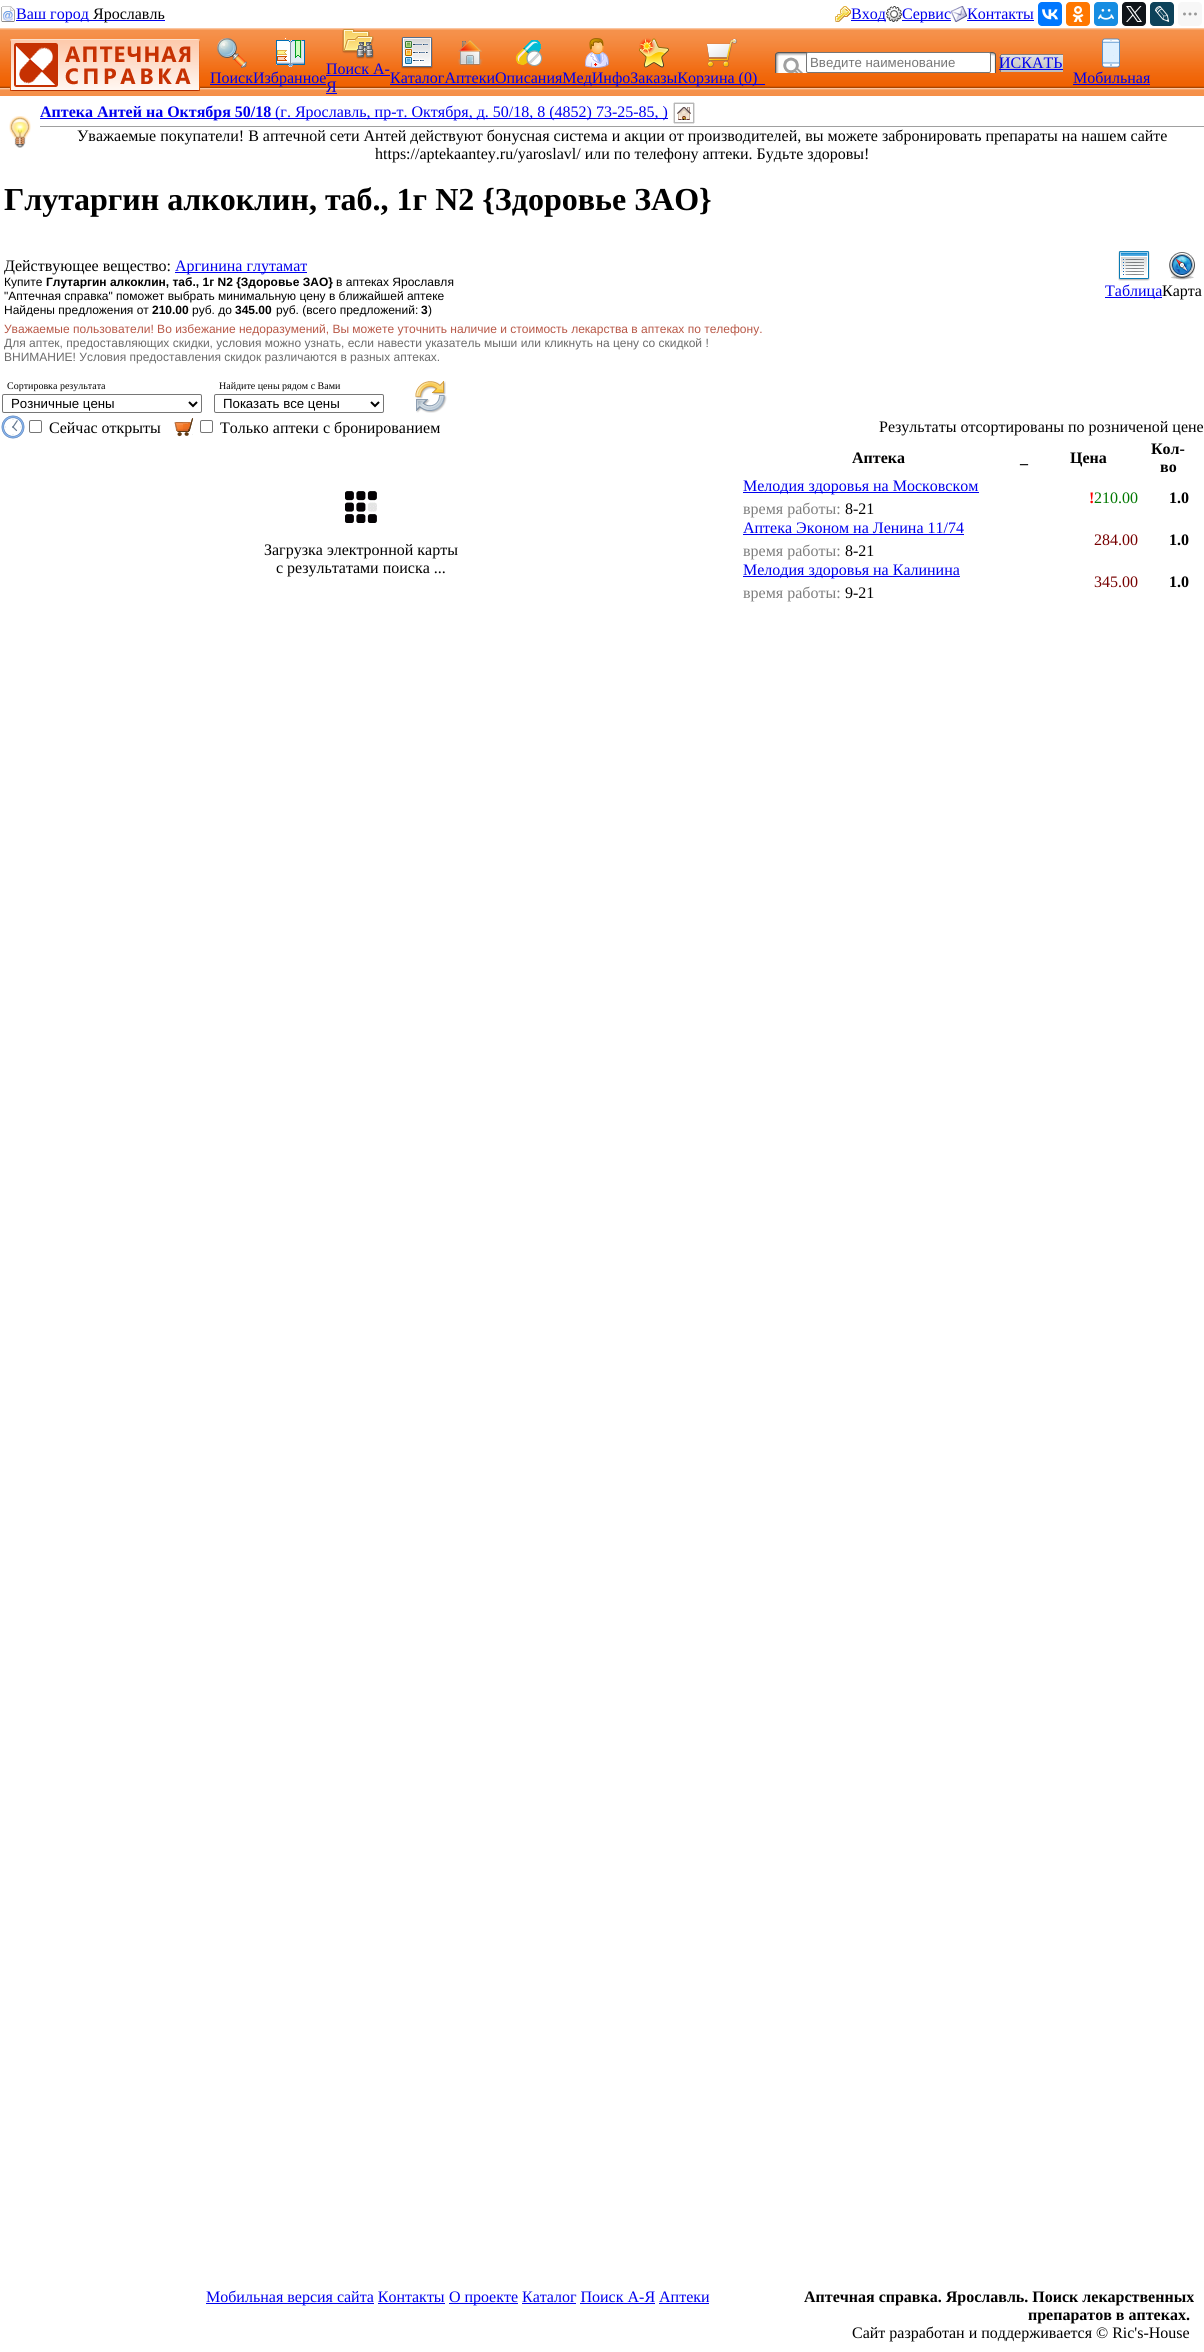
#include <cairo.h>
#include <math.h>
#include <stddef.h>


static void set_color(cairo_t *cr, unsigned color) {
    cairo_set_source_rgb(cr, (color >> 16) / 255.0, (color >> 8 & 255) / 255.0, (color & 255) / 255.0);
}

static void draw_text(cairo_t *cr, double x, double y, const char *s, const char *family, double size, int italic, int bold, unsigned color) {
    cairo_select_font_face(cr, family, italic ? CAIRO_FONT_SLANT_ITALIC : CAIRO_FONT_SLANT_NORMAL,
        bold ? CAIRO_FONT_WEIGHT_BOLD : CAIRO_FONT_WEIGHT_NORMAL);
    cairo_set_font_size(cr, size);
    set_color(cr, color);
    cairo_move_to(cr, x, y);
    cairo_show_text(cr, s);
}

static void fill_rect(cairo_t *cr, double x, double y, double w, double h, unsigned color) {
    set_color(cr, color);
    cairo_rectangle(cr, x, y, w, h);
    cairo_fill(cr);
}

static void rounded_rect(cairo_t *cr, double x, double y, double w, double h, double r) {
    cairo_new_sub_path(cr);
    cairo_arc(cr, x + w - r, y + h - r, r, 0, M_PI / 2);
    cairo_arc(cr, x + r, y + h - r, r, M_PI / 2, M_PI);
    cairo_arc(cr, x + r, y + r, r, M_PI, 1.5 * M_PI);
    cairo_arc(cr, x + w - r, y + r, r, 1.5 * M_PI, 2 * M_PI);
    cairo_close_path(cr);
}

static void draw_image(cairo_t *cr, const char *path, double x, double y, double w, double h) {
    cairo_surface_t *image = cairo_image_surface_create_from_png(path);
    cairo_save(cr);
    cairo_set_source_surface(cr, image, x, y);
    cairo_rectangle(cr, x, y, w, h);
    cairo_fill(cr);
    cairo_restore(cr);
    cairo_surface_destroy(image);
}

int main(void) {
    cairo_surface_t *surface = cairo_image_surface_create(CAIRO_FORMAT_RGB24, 1204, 2352);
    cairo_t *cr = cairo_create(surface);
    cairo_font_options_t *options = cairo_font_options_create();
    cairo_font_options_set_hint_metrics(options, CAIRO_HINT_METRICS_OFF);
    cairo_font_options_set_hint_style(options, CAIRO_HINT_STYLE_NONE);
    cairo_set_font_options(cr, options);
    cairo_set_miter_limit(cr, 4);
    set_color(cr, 0xFFFFFF);
    cairo_paint(cr);
    draw_image(cr, "assets/img1.png", 1, 6, 14, 16);
    fill_rect(cr, 16, 20, 149, 1, 0x0000EE);
    draw_text(cr, 16, 19, "Ваш город", "Liberation Serif", 16, 0, 0, 0x0000EE);
    draw_text(cr, 93, 19, "Ярославль", "Liberation Serif", 16, 0, 0, 0x000000);
    draw_image(cr, "assets/img2.png", 835, 6, 16, 16);
    fill_rect(cr, 851, 20, 35, 1, 0x0000EE);
    draw_text(cr, 851, 19, "Вход", "Liberation Serif", 16, 0, 0, 0x0000EE);
    draw_image(cr, "assets/img3.png", 886, 6, 16, 16);
    fill_rect(cr, 902, 20, 49, 1, 0x0000EE);
    draw_text(cr, 902, 19, "Сервис", "Liberation Serif", 16, 0, 0, 0x0000EE);
    draw_image(cr, "assets/img4.png", 951, 6, 16, 16);
    draw_text(cr, 967, 19, "Контакты", "Liberation Serif", 16, 0, 0, 0x0000EE);
    fill_rect(cr, 967, 20, 67, 1, 0x0000EE);
    set_color(cr, 0x0077FF);
    rounded_rect(cr, 1038, 2, 24, 24, 4);
    cairo_fill(cr);
    draw_image(cr, "assets/img5.png", 1042, 9, 16, 11);
    set_color(cr, 0xFF7700);
    rounded_rect(cr, 1066, 2, 24, 24, 4);
    cairo_fill(cr);
    draw_image(cr, "assets/img6.png", 1072, 6, 12, 16);
    set_color(cr, 0x168DE2);
    rounded_rect(cr, 1094, 2, 24, 24, 4);
    cairo_fill(cr);
    draw_image(cr, "assets/img7.png", 1098, 9, 16, 11);
    set_color(cr, 0x0F1419);
    rounded_rect(cr, 1122, 2, 24, 24, 4);
    cairo_fill(cr);
    draw_image(cr, "assets/img8.png", 1126, 6, 16, 16);
    set_color(cr, 0x0D425A);
    rounded_rect(cr, 1150, 2, 24, 24, 4);
    cairo_fill(cr);
    draw_image(cr, "assets/img9.png", 1155, 6, 15, 16);
    set_color(cr, 0xF7F7F7);
    rounded_rect(cr, 1178, 2, 24, 24, 4);
    cairo_fill(cr);
    draw_image(cr, "assets/img10.png", 1183, 12, 14, 4);
    draw_image(cr, "assets/img11.png", 0, 28, 1204, 68);
    draw_image(cr, "assets/img12.png", 10, 39, 190, 52);
    draw_image(cr, "assets/img13.png", 276, 38, 29, 29);
    draw_image(cr, "assets/img14.png", 342, 29, 32, 30);
    draw_text(cr, 326, 74, "Поиск А-", "Liberation Serif", 16, 0, 0, 0x0000EE);
    fill_rect(cr, 326, 75, 64, 1, 0x0000EE);
    draw_text(cr, 326, 92, "Я", "Liberation Serif", 16, 0, 0, 0x0000EE);
    fill_rect(cr, 326, 93, 11, 1, 0x0000EE);
    draw_image(cr, "assets/img15.png", 457, 39, 26, 27);
    draw_image(cr, "assets/img16.png", 515, 40, 28, 27);
    draw_image(cr, "assets/img17.png", 585, 38, 24, 30);
    draw_image(cr, "assets/img18.png", 639, 38, 30, 30);
    draw_image(cr, "assets/img19.png", 706, 38, 32, 30);
    draw_image(cr, "assets/img20.png", 775, 52, 5, 21);
    draw_image(cr, "assets/img21.png", 780, 52, 26, 21);
    draw_image(cr, "assets/img22.png", 806, 52, 185, 21);
    set_color(cr, 0xFFFFFF);
    rounded_rect(cr, 806.5, 52.5, 184, 20, 1.5);
    cairo_fill_preserve(cr);
    set_color(cr, 0x767676);
    cairo_set_line_width(cr, 1);
    cairo_stroke(cr);
    draw_text(cr, 810, 67, "Введите наименование", "Liberation Sans", 13.25, 0, 0, 0x777777);
    draw_image(cr, "assets/img23.png", 991, 52, 5, 21);
    draw_image(cr, "assets/img24.png", 999, 54, 64, 18);
    draw_text(cr, 999, 68, "ИСКАТЬ", "Liberation Serif", 16, 0, 0, 0x0000EE);
    fill_rect(cr, 999, 69, 64, 1, 0x0000EE);
    draw_image(cr, "assets/img25.png", 217, 38, 30, 30);
    fill_rect(cr, 210, 84, 116, 1, 0x0000EE);
    draw_text(cr, 210, 83, "ПоискИзбранное", "Liberation Serif", 16, 0, 0, 0x0000EE);
    draw_image(cr, "assets/img26.png", 401, 37, 32, 32);
    fill_rect(cr, 390, 84, 375, 1, 0x0000EE);
    draw_text(cr, 390, 83, "КаталогАптекиОписанияМедИнфоЗаказыКорзина (0)", "Liberation Serif", 16, 0, 0, 0x0000EE);
    draw_image(cr, "assets/img27.png", 1102, 38, 18, 30);
    draw_text(cr, 1073, 83, "Мобильная", "Liberation Serif", 16, 0, 0, 0x0000EE);
    fill_rect(cr, 1073, 84, 77, 1, 0x0000EE);
    draw_image(cr, "assets/img28.png", 9, 116, 22, 32);
    fill_rect(cr, 40, 118, 628, 1, 0x0000EE);
    draw_text(cr, 40, 117, "Аптека Антей на Октября 50/18", "Liberation Serif", 16, 0, 1, 0x0000EE);
    draw_text(cr, 275, 117, "(г. Ярославль, пр-т. Октября, д. 50/18, 8 (4852) 73-25-85, )", "Liberation Serif", 16, 0, 0, 0x0000EE);
    draw_image(cr, "assets/img29.png", 673, 102, 22, 22);
    fill_rect(cr, 40, 126, 1164, 1, 0xA0A0A0);
    draw_text(cr, 77, 141, "Уважаемые покупатели! В аптечной сети Антей действуют бонусная система и акции от производителей, вы можете забронировать препараты на нашем сайте", "Liberation Serif", 16, 0, 0, 0x000000);
    draw_text(cr, 375, 159, "https://aptekaantey.ru/yaroslavl/ или по телефону аптеки. Будьте здоровы!", "Liberation Serif", 16, 0, 0, 0x000000);
    draw_text(cr, 4, 210, "Глутаргин алкоклин, таб., 1г N2 {Здоровье ЗАО}", "Liberation Serif", 32, 0, 1, 0x000000);
    draw_text(cr, 4, 271, "Действующее вещество:", "Liberation Serif", 16, 0, 0, 0x000000);
    fill_rect(cr, 175, 272, 132, 1, 0x0000EE);
    draw_text(cr, 175, 271, "Аргинина глутамат", "Liberation Serif", 16, 0, 0, 0x0000EE);
    draw_text(cr, 4, 286, "Купите", "Liberation Sans", 12, 0, 0, 0x000000);
    draw_text(cr, 46, 286, "Глутаргин алкоклин, таб., 1г N2 {Здоровье ЗАО}", "Liberation Sans", 12, 0, 1, 0x000000);
    draw_text(cr, 336, 286, "в аптеках Ярославля", "Liberation Sans", 12, 0, 0, 0x000000);
    draw_text(cr, 4, 300, "\"Аптечная справка\" поможет выбрать минимальную цену в ближайшей аптеке", "Liberation Sans", 12, 0, 0, 0x000000);
    draw_text(cr, 4, 314, "Найдены предложения от", "Liberation Sans", 12, 0, 0, 0x000000);
    draw_text(cr, 152, 314, "210.00", "Liberation Sans", 12, 0, 1, 0x000000);
    draw_text(cr, 192, 314, "руб. до", "Liberation Sans", 12, 0, 0, 0x000000);
    draw_text(cr, 235, 314, "345.00", "Liberation Sans", 12, 0, 1, 0x000000);
    draw_text(cr, 276, 314, "руб. (всего предложений:", "Liberation Sans", 12, 0, 0, 0x000000);
    draw_text(cr, 421, 314, "3", "Liberation Sans", 12, 0, 1, 0x000000);
    draw_text(cr, 428, 314, ")", "Liberation Sans", 12, 0, 0, 0x000000);
    draw_text(cr, 4, 333, "Уважаемые пользователи! Во избежание недоразумений, Вы можете уточнить наличие и стоимость лекарства в аптеках по телефону.", "Liberation Sans", 12, 0, 0, 0xB85847);
    draw_text(cr, 4, 347, "Для аптек, предоставляющих скидки, условия можно узнать, если навести указатель мыши или кликнуть на цену со скидкой !", "Liberation Sans", 12, 0, 0, 0x6B6B6B);
    draw_text(cr, 4, 361, "ВНИМАНИЕ! Условия предоставления скидок различаются в разных аптеках.", "Liberation Sans", 12, 0, 0, 0x6B6B6B);
    draw_image(cr, "assets/img30.png", 1118, 251, 32, 30);
    fill_rect(cr, 1105, 297, 57, 1, 0x0000EE);
    draw_text(cr, 1105, 296, "Таблица", "Liberation Serif", 16, 0, 0, 0x0000EE);
    draw_image(cr, "assets/img31.png", 1169, 252, 26, 28);
    draw_text(cr, 1162, 296, "Карта", "Liberation Serif", 16, 0, 0, 0x000000);
    draw_text(cr, 7, 389, "Сортировка результата", "Liberation Serif", 10, 0, 0, 0x000000);
    rounded_rect(cr, 2.5, 394.5, 199, 18, 1.5);
    set_color(cr, 0x767676);
    cairo_stroke(cr);
    cairo_new_path(cr);
    cairo_move_to(cr, 189, 402);
    cairo_line_to(cr, 193, 406);
    cairo_line_to(cr, 197, 402);
    set_color(cr, 0x000000);
    cairo_set_line_width(cr, 2);
    cairo_stroke(cr);
    draw_text(cr, 11, 408, "Розничные цены", "Liberation Sans", 13.25, 0, 0, 0x000000);
    draw_text(cr, 219, 389, "Найдите цены рядом с Вами", "Liberation Serif", 10, 0, 0, 0x000000);
    rounded_rect(cr, 214.5, 394.5, 169, 18, 1.5);
    set_color(cr, 0x767676);
    cairo_set_line_width(cr, 1);
    cairo_stroke(cr);
    cairo_new_path(cr);
    cairo_move_to(cr, 371, 402);
    cairo_line_to(cr, 375, 406);
    cairo_line_to(cr, 379, 402);
    set_color(cr, 0x000000);
    cairo_set_line_width(cr, 2);
    cairo_stroke(cr);
    draw_text(cr, 223, 408, "Показать все цены", "Liberation Sans", 13.25, 0, 0, 0x000000);
    draw_image(cr, "assets/img32.png", 415, 381, 32, 32);
    draw_image(cr, "assets/img33.png", 1, 415, 24, 24);
    rounded_rect(cr, 29.5, 420.5, 12, 12, 1.5);
    set_color(cr, 0x767676);
    cairo_set_line_width(cr, 1);
    cairo_stroke(cr);
    draw_text(cr, 49, 433, "Сейчас открыты", "Liberation Serif", 16, 0, 0, 0x000000);
    draw_image(cr, "assets/img34.png", 174, 418, 20, 19);
    rounded_rect(cr, 200.5, 420.5, 12, 12, 1.5);
    set_color(cr, 0x767676);
    cairo_stroke(cr);
    draw_text(cr, 220, 433, "Только аптеки с бронированием", "Liberation Serif", 16, 0, 0, 0x000000);
    draw_text(cr, 879, 432, "Результаты отсортированы по розниченой цене", "Liberation Serif", 16, 0, 0, 0x000000);
    draw_image(cr, "assets/img35.png", 345, 491, 32, 32);
    draw_text(cr, 264, 555, "Загрузка электронной карты", "Liberation Serif", 16, 0, 0, 0x000000);
    draw_text(cr, 276, 573, "с результатами поиска ...", "Liberation Serif", 16, 0, 0, 0x000000);
    draw_text(cr, 852, 463, "Аптека", "Liberation Serif", 16, 0, 1, 0x000000);
    draw_text(cr, 1020, 463, "_", "Liberation Serif", 16, 0, 1, 0x000000);
    draw_text(cr, 1070, 463, "Цена", "Liberation Serif", 16, 0, 1, 0x000000);
    draw_text(cr, 1151, 454, "Кол-", "Liberation Serif", 16, 0, 1, 0x000000);
    draw_text(cr, 1160, 472, "во", "Liberation Serif", 16, 0, 1, 0x000000);
    fill_rect(cr, 743, 492, 236, 1, 0x0000EE);
    draw_text(cr, 743, 491, "Мелодия здоровья на Московском", "Liberation Serif", 16, 0, 0, 0x0000EE);
    draw_text(cr, 743, 514, "время работы:", "Liberation Serif", 16, 0, 0, 0x7E7E7E);
    draw_text(cr, 845, 514, "8-21", "Liberation Serif", 16, 0, 0, 0x000000);
    draw_text(cr, 1089, 503, "!", "Liberation Serif", 16, 0, 1, 0xFF0000);
    draw_text(cr, 1094, 503, "210.00", "Liberation Serif", 16, 0, 0, 0x007700);
    draw_text(cr, 1169, 503, "1.0", "Liberation Serif", 16, 0, 1, 0x000000);
    draw_text(cr, 743, 533, "Аптека Эконом на Ленина 11/74", "Liberation Serif", 16, 0, 0, 0x0000EE);
    fill_rect(cr, 743, 534, 221, 1, 0x0000EE);
    draw_text(cr, 743, 556, "время работы:", "Liberation Serif", 16, 0, 0, 0x7E7E7E);
    draw_text(cr, 845, 556, "8-21", "Liberation Serif", 16, 0, 0, 0x000000);
    draw_text(cr, 1094, 545, "284.00", "Liberation Serif", 16, 0, 0, 0x770000);
    draw_text(cr, 1169, 545, "1.0", "Liberation Serif", 16, 0, 1, 0x000000);
    fill_rect(cr, 743, 576, 217, 1, 0x0000EE);
    draw_text(cr, 743, 575, "Мелодия здоровья на Калинина", "Liberation Serif", 16, 0, 0, 0x0000EE);
    draw_text(cr, 743, 598, "время работы:", "Liberation Serif", 16, 0, 0, 0x7E7E7E);
    draw_text(cr, 845, 598, "9-21", "Liberation Serif", 16, 0, 0, 0x000000);
    draw_text(cr, 1094, 587, "345.00", "Liberation Serif", 16, 0, 0, 0x770000);
    draw_text(cr, 1169, 587, "1.0", "Liberation Serif", 16, 0, 1, 0x000000);
    fill_rect(cr, 206, 2303, 168, 1, 0x0000EE);
    draw_text(cr, 206, 2302, "Мобильная версия сайта Контакты", "Liberation Serif", 16, 0, 0, 0x0000EE);
    fill_rect(cr, 449, 2303, 69, 1, 0x0000EE);
    draw_text(cr, 449, 2302, "О проекте Каталог Поиск А-Я Аптеки", "Liberation Serif", 16, 0, 0, 0x0000EE);
    fill_rect(cr, 378, 2303, 67, 1, 0x0000EE);
    fill_rect(cr, 522, 2303, 54, 1, 0x0000EE);
    fill_rect(cr, 580, 2303, 75, 1, 0x0000EE);
    fill_rect(cr, 659, 2303, 50, 1, 0x0000EE);
    draw_text(cr, 804, 2302, "Аптечная справка. Ярославль. Поиск лекарственных", "Liberation Serif", 16, 0, 1, 0x000000);
    draw_text(cr, 1028, 2320, "препаратов в аптеках.", "Liberation Serif", 16, 0, 1, 0x000000);
    draw_text(cr, 852, 2338, "Сайт разработан и поддерживается © Ric's-House", "Liberation Serif", 16, 0, 0, 0x000000);
    cairo_surface_write_to_png(surface, "output.png");
    cairo_font_options_destroy(options);
    cairo_destroy(cr);
    cairo_surface_destroy(surface);
    return 0;
}
